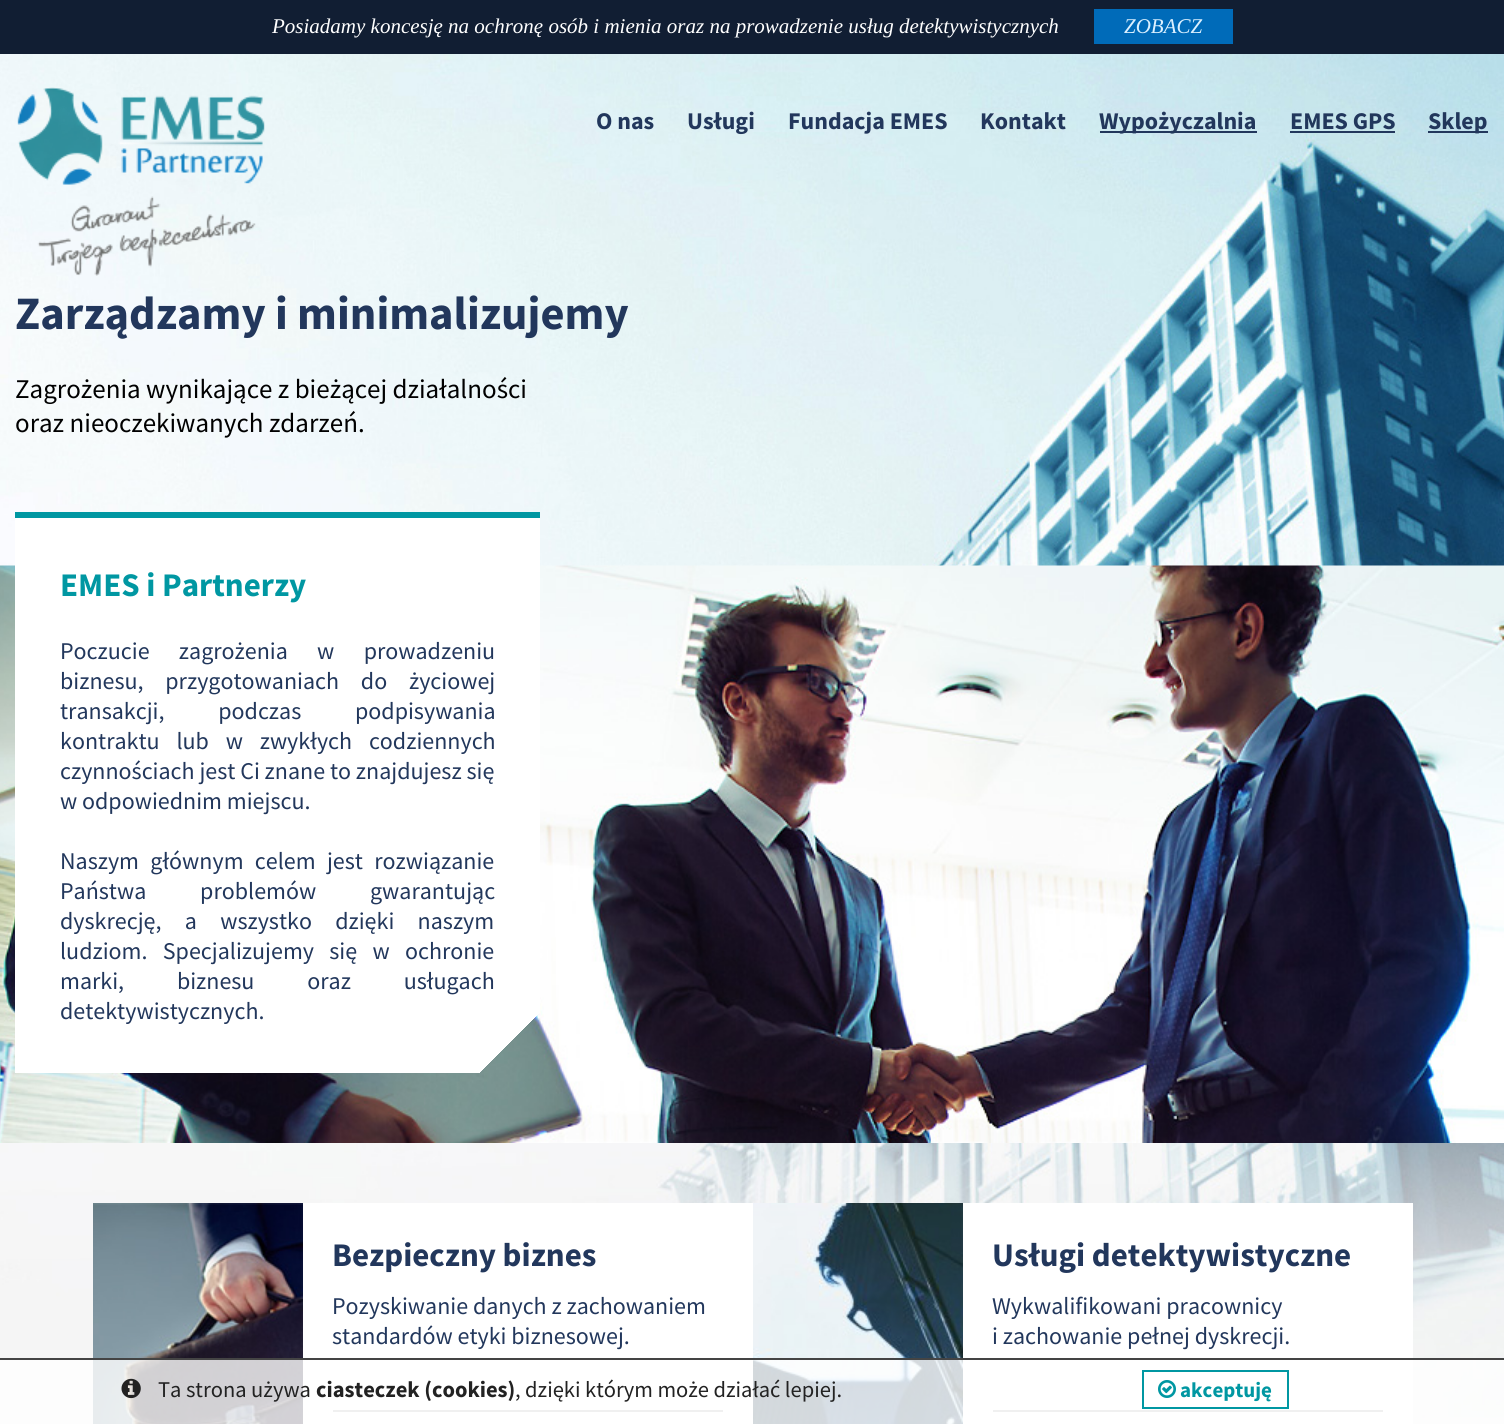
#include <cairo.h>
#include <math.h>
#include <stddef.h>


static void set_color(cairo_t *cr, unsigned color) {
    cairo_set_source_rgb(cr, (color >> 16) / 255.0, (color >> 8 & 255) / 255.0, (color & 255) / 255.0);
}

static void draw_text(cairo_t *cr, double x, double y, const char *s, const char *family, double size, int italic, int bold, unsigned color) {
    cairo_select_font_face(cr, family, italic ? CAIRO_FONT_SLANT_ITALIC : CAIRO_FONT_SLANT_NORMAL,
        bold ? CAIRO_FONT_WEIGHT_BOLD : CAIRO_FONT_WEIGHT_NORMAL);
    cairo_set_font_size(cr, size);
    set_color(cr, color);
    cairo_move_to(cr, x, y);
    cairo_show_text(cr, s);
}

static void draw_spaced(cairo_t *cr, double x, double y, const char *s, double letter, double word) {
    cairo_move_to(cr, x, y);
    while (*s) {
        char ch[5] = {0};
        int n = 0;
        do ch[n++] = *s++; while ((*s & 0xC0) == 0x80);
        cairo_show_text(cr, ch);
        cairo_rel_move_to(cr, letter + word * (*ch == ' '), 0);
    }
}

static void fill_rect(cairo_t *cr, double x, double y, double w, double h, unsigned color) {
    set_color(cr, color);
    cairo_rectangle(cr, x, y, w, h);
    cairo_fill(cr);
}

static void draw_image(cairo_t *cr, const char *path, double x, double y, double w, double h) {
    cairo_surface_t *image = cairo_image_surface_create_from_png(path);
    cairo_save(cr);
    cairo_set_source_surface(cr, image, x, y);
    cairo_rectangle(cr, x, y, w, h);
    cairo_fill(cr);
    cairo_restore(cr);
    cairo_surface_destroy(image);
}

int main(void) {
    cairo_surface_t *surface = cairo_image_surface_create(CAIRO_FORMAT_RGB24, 1504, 1424);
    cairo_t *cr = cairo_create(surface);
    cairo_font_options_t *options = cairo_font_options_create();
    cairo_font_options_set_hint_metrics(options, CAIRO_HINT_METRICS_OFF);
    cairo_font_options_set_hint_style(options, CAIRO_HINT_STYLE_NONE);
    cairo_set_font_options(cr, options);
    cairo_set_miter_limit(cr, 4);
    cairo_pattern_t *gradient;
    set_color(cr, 0xF4F4F4);
    cairo_paint(cr);
    draw_image(cr, "assets/img1.png", 0, 54, 1504, 1364);
    fill_rect(cr, 0, 0, 1504, 54, 0x111E33);
    draw_text(cr, 272, 33, "Posiadamy koncesję na ochronę osób i mienia oraz na prowadzenie usług detektywistycznych", "Liberation Serif", 21, 1, 0, 0xFFFFFF);
    fill_rect(cr, 1094, 9, 139, 35, 0x006BB9);
    draw_text(cr, 1124, 33, "ZOBACZ", "Liberation Serif", 21, 1, 0, 0xDBF0FF);
    draw_image(cr, "assets/img2.png", 17, 87, 248, 189);
    draw_text(cr, 596, 129, "O nas", "Source Sans Pro", 24, 0, 1, 0x22375C);
    draw_text(cr, 687, 129, "Usługi", "Source Sans Pro", 24, 0, 1, 0x22375C);
    draw_text(cr, 788, 129, "Fundacja EMES", "Source Sans Pro", 24, 0, 1, 0x22375C);
    draw_text(cr, 980, 129, "Kontakt", "Source Sans Pro", 24, 0, 1, 0x22375C);
    fill_rect(cr, 1100, 131, 157, 2, 0x22375C);
    draw_text(cr, 1099, 129, "Wypożyczalnia", "Source Sans Pro", 24, 0, 1, 0x22375C);
    draw_text(cr, 1290, 129, "EMES GPS", "Source Sans Pro", 24, 0, 1, 0x22375C);
    fill_rect(cr, 1290, 131, 105, 2, 0x22375C);
    fill_rect(cr, 1428, 131, 60, 2, 0x22375C);
    draw_text(cr, 1428, 129, "Sklep", "Source Sans Pro", 24, 0, 1, 0x22375C);
    draw_text(cr, 15, 329, "Zarządzamy i minimalizujemy", "Source Sans Pro", 46.5, 0, 1, 0x22375C);
    draw_text(cr, 15, 398, "Zagrożenia wynikające z bieżącej działalności", "Source Sans Pro", 27, 0, 0, 0x000000);
    draw_text(cr, 15, 432, "oraz nieoczekiwanych zdarzeń.", "Source Sans Pro", 27, 0, 0, 0x000000);
    draw_image(cr, "assets/img3.png", 0, 565, 1504, 578);
    fill_rect(cr, 284, 518, 256, 271, 0xFFFFFF);
    gradient = cairo_pattern_create_linear(544, 1069, 268, 793);
    cairo_pattern_add_color_stop_rgba(gradient, 0.11, 1, 1, 1, 0);
    cairo_pattern_add_color_stop_rgba(gradient, 0.11, 1, 1, 1, 1);
    cairo_set_source(cr, gradient);
    cairo_pattern_destroy(gradient);
    cairo_rectangle(cr, 284, 789, 256, 284);
    cairo_fill(cr);
    fill_rect(cr, 15, 518, 269, 555, 0xFFFFFF);
    fill_rect(cr, 15, 512, 525, 6, 0x0097A2);
    draw_text(cr, 60, 596, "EMES i Partnerzy", "Source Sans Pro", 33, 0, 1, 0x0097A2);
    cairo_select_font_face(cr, "Source Sans Pro", CAIRO_FONT_SLANT_NORMAL, CAIRO_FONT_WEIGHT_NORMAL);
    cairo_set_font_size(cr, 24);
    set_color(cr, 0x22375C);
    draw_spaced(cr, 60, 659, "Poczucie zagrożenia w prowadzeniu", 0, 24.5);
    draw_spaced(cr, 60, 689, "biznesu, przygotowaniach do życiowej", 0, 17);
    draw_spaced(cr, 60, 719, "transakcji, podczas podpisywania", 0, 49);
    draw_spaced(cr, 60, 749, "kontraktu lub w zwykłych codziennych", 0, 12);
    draw_text(cr, 60, 779, "czynnościach jest Ci znane to znajdujesz się", "Source Sans Pro", 24, 0, 0, 0x22375C);
    draw_text(cr, 60, 809, "w odpowiednim miejscu.", "Source Sans Pro", 24, 0, 0, 0x22375C);
    draw_spaced(cr, 60, 869, "Naszym głównym celem jest rozwiązanie", 0, 6.5);
    draw_spaced(cr, 60, 899, "Państwa problemów gwarantując", 0, 49);
    draw_spaced(cr, 60, 929, "dyskrecję, a wszystko dzięki naszym", 0, 18.5);
    draw_spaced(cr, 60, 959, "ludziom. Specjalizujemy się w ochronie", 0, 10.5);
    draw_spaced(cr, 60, 989, "marki, biznesu oraz usługach", 0, 48);
    draw_text(cr, 60, 1019, "detektywistycznych.", "Source Sans Pro", 24, 0, 0, 0x22375C);
    draw_image(cr, "assets/img4.png", 93, 1203, 210, 221);
    fill_rect(cr, 303, 1203, 450, 221, 0xFFFFFF);
    draw_text(cr, 332, 1266, "Bezpieczny biznes", "Source Sans Pro", 33, 0, 1, 0x22375C);
    draw_text(cr, 332, 1314, "Pozyskiwanie danych z zachowaniem", "Source Sans Pro", 24, 0, 0, 0x22375C);
    draw_text(cr, 332, 1344, "standardów etyki biznesowej.", "Source Sans Pro", 24, 0, 0, 0x22375C);
    fill_rect(cr, 333, 1410, 390, 2, 0xB2B2B2);
    draw_image(cr, "assets/img5.png", 753, 1203, 210, 221);
    fill_rect(cr, 963, 1203, 450, 221, 0xFFFFFF);
    draw_text(cr, 992, 1266, "Usługi detektywistyczne", "Source Sans Pro", 33, 0, 1, 0x22375C);
    draw_text(cr, 992, 1314, "Wykwalifikowani pracownicy", "Source Sans Pro", 24, 0, 0, 0x22375C);
    draw_text(cr, 992, 1344, "i zachowanie pełnej dyskrecji.", "Source Sans Pro", 24, 0, 0, 0x22375C);
    fill_rect(cr, 993, 1410, 390, 2, 0xB2B2B2);
    cairo_set_source_rgba(cr, 1, 1, 1, 0.8);
    cairo_rectangle(cr, 0, 1360, 1504, 64);
    cairo_fill(cr);
    fill_rect(cr, 0, 1358, 1504, 2, 0x444444);
    draw_image(cr, "assets/img6.png", 121, 1378, 20, 21);
    draw_text(cr, 158, 1397, "Ta strona używa", "Source Sans Pro", 22.5, 0, 0, 0x222222);
    draw_text(cr, 316, 1397, "ciasteczek (cookies)", "Source Sans Pro", 22.5, 0, 1, 0x222222);
    draw_text(cr, 515, 1397, ", dzięki którym może działać lepiej.", "Source Sans Pro", 22.5, 0, 0, 0x222222);
    cairo_rectangle(cr, 1143, 1371, 145, 37);
    set_color(cr, 0x0097A2);
    cairo_stroke(cr);
    draw_image(cr, "assets/img7.png", 1158, 1380, 18, 18);
    draw_text(cr, 1180, 1397, "akceptuję", "Source Sans Pro", 21, 0, 1, 0x0097A2);
    cairo_surface_write_to_png(surface, "output.png");
    cairo_font_options_destroy(options);
    cairo_destroy(cr);
    cairo_surface_destroy(surface);
    return 0;
}
